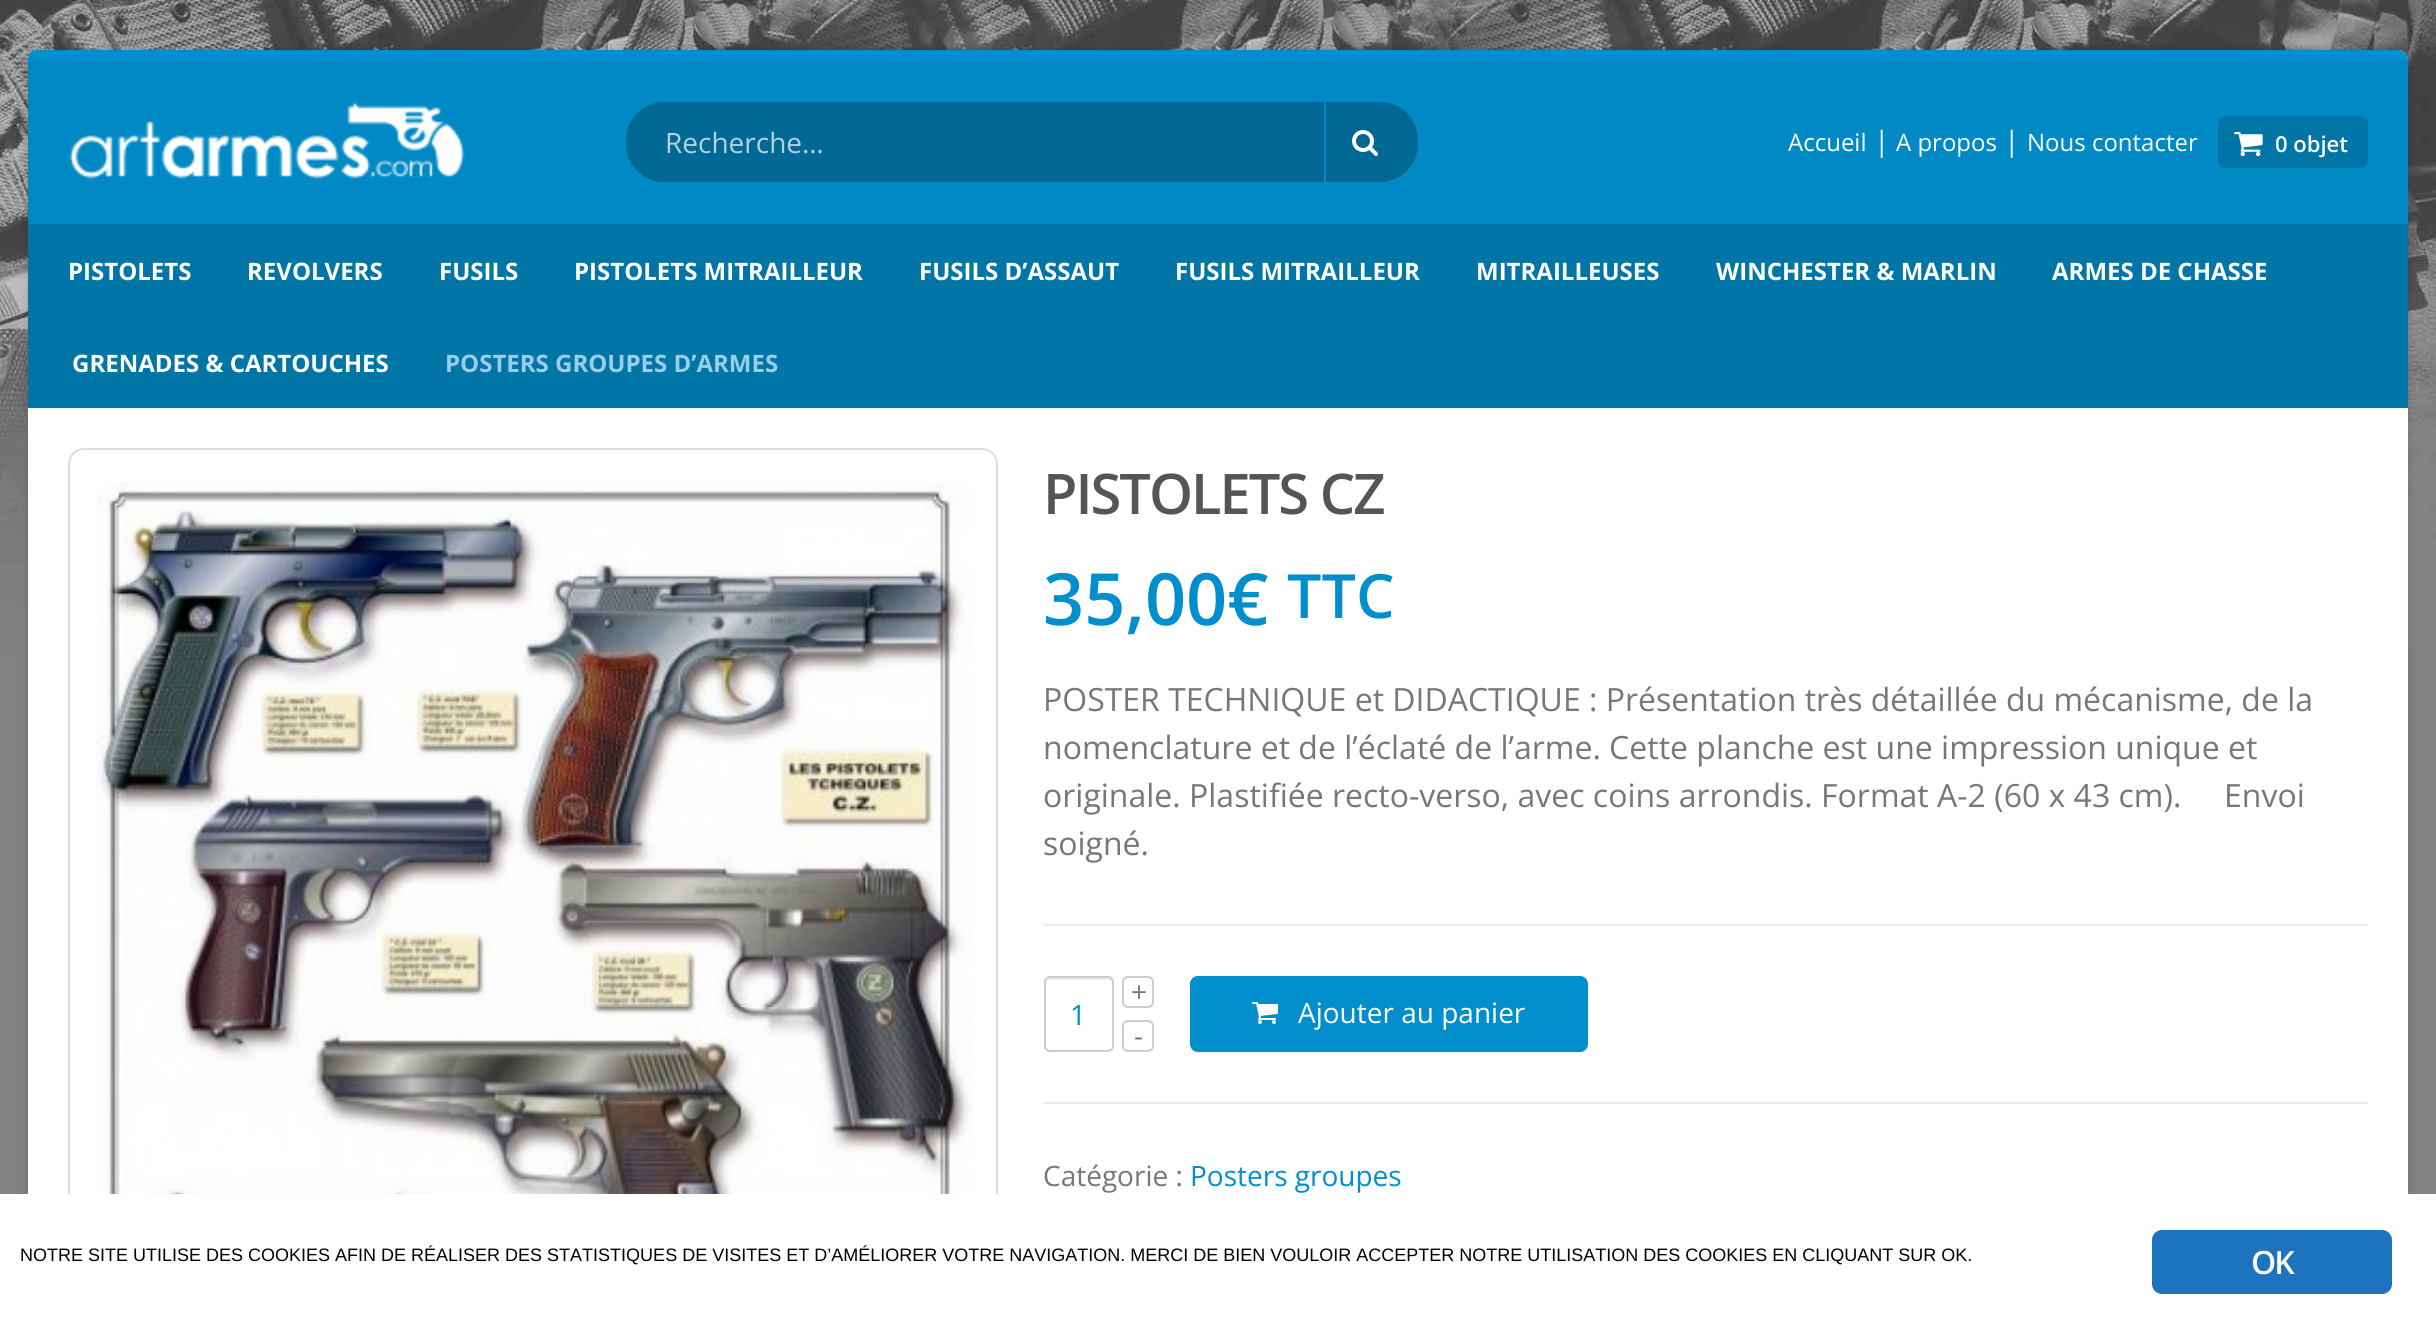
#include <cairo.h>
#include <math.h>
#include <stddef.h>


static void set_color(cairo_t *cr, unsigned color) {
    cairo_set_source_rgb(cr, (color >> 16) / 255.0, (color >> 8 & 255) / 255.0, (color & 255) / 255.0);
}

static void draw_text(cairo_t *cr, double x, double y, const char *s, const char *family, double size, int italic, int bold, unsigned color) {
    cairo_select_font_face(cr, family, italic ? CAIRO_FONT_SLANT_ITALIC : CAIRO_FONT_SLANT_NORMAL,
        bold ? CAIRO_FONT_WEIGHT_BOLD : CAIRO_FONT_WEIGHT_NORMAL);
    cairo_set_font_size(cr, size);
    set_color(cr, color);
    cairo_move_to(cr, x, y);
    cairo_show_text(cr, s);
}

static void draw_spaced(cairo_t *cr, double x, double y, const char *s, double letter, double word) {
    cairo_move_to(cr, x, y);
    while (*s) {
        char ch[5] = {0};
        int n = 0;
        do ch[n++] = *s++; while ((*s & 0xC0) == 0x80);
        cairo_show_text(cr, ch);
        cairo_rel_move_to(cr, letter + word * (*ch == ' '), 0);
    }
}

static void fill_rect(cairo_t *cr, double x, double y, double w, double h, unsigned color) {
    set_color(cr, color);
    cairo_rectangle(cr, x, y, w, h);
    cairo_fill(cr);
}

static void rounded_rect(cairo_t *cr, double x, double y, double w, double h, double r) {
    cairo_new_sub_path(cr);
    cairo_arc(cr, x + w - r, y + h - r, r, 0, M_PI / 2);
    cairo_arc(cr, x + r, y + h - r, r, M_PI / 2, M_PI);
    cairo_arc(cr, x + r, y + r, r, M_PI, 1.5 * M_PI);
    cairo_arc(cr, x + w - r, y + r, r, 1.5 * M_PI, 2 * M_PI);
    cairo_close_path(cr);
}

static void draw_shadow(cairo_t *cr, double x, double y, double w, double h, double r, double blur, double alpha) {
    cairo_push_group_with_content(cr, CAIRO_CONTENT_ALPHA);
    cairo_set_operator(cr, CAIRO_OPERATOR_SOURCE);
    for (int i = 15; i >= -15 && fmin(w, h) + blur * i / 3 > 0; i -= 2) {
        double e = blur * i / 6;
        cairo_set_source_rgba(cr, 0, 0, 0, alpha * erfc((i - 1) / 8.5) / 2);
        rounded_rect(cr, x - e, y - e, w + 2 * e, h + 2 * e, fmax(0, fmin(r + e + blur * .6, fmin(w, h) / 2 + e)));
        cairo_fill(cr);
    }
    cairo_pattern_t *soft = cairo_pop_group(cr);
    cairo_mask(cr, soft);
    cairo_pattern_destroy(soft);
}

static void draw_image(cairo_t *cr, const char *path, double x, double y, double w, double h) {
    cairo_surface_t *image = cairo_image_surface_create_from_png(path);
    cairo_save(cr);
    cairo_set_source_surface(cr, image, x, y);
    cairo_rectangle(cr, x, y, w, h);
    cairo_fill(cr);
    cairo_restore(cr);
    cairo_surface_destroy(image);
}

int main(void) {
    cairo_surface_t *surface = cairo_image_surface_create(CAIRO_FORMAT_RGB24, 2436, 1325);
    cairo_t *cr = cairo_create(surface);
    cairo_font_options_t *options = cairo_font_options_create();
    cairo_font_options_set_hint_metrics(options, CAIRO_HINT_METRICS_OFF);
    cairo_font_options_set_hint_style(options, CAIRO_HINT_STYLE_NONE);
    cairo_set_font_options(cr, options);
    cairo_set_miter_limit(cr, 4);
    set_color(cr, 0x828282);
    cairo_paint(cr);
    draw_image(cr, "assets/img1.png", 0, 0, 2436, 652);
    set_color(cr, 0x000000);
    draw_shadow(cr, 28, 50, 2380, 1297, 10, 4, 0.15);
    set_color(cr, 0xFFFFFF);
    rounded_rect(cr, 28, 50, 2380, 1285, 10);
    cairo_fill(cr);
    set_color(cr, 0x008FCC);
    cairo_new_path(cr);
    cairo_move_to(cr, 38, 50);
    cairo_curve_to(cr, 32, 50, 28, 54, 28, 60);
    cairo_line_to(cr, 2408, 60);
    cairo_curve_to(cr, 2408, 54, 2404, 50, 2398, 50);
    cairo_close_path(cr);
    cairo_fill(cr);
    fill_rect(cr, 28, 60, 2380, 164, 0x0089C4);
    draw_image(cr, "assets/img2.png", 69, 101, 396, 78);
    set_color(cr, 0x006895);
    rounded_rect(cr, 625, 101, 794, 82, 39);
    cairo_fill_preserve(cr);
    set_color(cr, 0x0089C4);
    cairo_stroke(cr);
    fill_rect(cr, 1324, 102, 2, 80, 0x0089C4);
    draw_text(cr, 665, 153, "Recherche…", "Open Sans", 28, 0, 0, 0xB3D2DF);
    draw_image(cr, "assets/img3.png", 1352, 130, 26, 26);
    draw_text(cr, 1788, 151, "Accueil", "Open Sans", 24, 0, 0, 0xFFFFFF);
    draw_text(cr, 1874, 151, "|", "Open Sans", 28, 0, 0, 0xFFFFFF);
    draw_text(cr, 1896, 151, "A propos", "Open Sans", 24, 0, 0, 0xFFFFFF);
    draw_text(cr, 2004, 151, "|", "Open Sans", 28, 0, 0, 0xFFFFFF);
    draw_text(cr, 2027, 151, "Nous contacter", "Open Sans", 24, 0, 0, 0xFFFFFF);
    set_color(cr, 0x0075A6);
    rounded_rect(cr, 2218, 116, 150, 52, 8);
    cairo_fill(cr);
    draw_image(cr, "assets/img4.png", 2234, 132, 29, 25);
    draw_text(cr, 2275, 152, "0 objet", "Open Sans SemiBold", 22, 0, 0, 0xFFFFFF);
    fill_rect(cr, 28, 224, 2380, 184, 0x0075A6);
    draw_text(cr, 68, 280, "PISTOLETS", "Open Sans", 24, 0, 1, 0xFFFFFF);
    draw_text(cr, 247, 280, "REVOLVERS", "Open Sans", 24, 0, 1, 0xFFFFFF);
    draw_text(cr, 439, 280, "FUSILS", "Open Sans", 24, 0, 1, 0xFFFFFF);
    draw_text(cr, 574, 280, "PISTOLETS MITRAILLEUR", "Open Sans", 24, 0, 1, 0xFFFFFF);
    draw_text(cr, 919, 280, "FUSILS D’ASSAUT", "Open Sans", 24, 0, 1, 0xFFFFFF);
    draw_text(cr, 1175, 280, "FUSILS MITRAILLEUR", "Open Sans", 24, 0, 1, 0xFFFFFF);
    draw_text(cr, 1476, 280, "MITRAILLEUSES", "Open Sans", 24, 0, 1, 0xFFFFFF);
    draw_text(cr, 1716, 280, "WINCHESTER & MARLIN", "Open Sans", 24, 0, 1, 0xFFFFFF);
    draw_text(cr, 2052, 280, "ARMES DE CHASSE", "Open Sans", 24, 0, 1, 0xFFFFFF);
    draw_text(cr, 72, 372, "GRENADES & CARTOUCHES", "Open Sans", 24, 0, 1, 0xFFFFFF);
    draw_text(cr, 445, 372, "POSTERS GROUPES D’ARMES", "Open Sans", 24, 0, 1, 0x99CEE8);
    rounded_rect(cr, 69, 449, 928, 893, 15);
    set_color(cr, 0xDDDDDD);
    cairo_stroke(cr);
    draw_image(cr, "assets/img5.png", 95, 482, 878, 712);
    cairo_select_font_face(cr, "Open Sans SemiBold", CAIRO_FONT_SLANT_NORMAL, CAIRO_FONT_WEIGHT_NORMAL);
    cairo_set_font_size(cr, 56);
    set_color(cr, 0x555555);
    draw_spaced(cr, 1043, 514, "PISTOLETS CZ", -2, 0);
    draw_text(cr, 1043, 625, "35,00€", "Open Sans SemiBold", 72, 0, 0, 0x008FCC);
    draw_text(cr, 1287, 618, "TTC", "Open Sans SemiBold", 61, 0, 0, 0x008FCC);
    draw_text(cr, 1043, 711, "POSTER TECHNIQUE et DIDACTIQUE : Présentation très détaillée du mécanisme, de la", "Open Sans", 32, 0, 0, 0x777777);
    draw_text(cr, 1043, 759, "nomenclature et de l’éclaté de l’arme. Cette planche est une impression unique et", "Open Sans", 32, 0, 0, 0x777777);
    draw_text(cr, 1043, 807, "originale. Plastifiée recto-verso, avec coins arrondis. Format A-2 (60 x 43 cm).", "Open Sans", 32, 0, 0, 0x777777);
    draw_text(cr, 2224, 807, "Envoi", "Open Sans", 32, 0, 0, 0x777777);
    draw_text(cr, 1043, 855, "soigné.", "Open Sans", 32, 0, 0, 0x777777);
    fill_rect(cr, 1044, 924, 1324, 2, 0xEBEBEB);
    fill_rect(cr, 1044, 1102, 1324, 2, 0xEBEBEB);
    rounded_rect(cr, 1123, 977, 30, 30, 5);
    set_color(cr, 0xCCCCCC);
    cairo_stroke(cr);
    draw_text(cr, 1131, 1002, "+", "Open Sans", 28, 0, 0, 0x777777);
    set_color(cr, 0xECECEC);
    cairo_new_path(cr);
    cairo_move_to(cr, 1050, 980);
    cairo_line_to(cr, 1108, 980);
    cairo_curve_to(cr, 1110, 980, 1112, 982, 1112, 984);
    cairo_curve_to(cr, 1112, 976, 1106, 978, 1098, 978);
    cairo_line_to(cr, 1060, 978);
    cairo_curve_to(cr, 1052, 978, 1046, 976, 1046, 984);
    cairo_curve_to(cr, 1046, 982, 1048, 980, 1050, 980);
    cairo_close_path(cr);
    cairo_fill(cr);
    rounded_rect(cr, 1045, 977, 68, 74, 5);
    set_color(cr, 0xCCCCCC);
    cairo_stroke(cr);
    draw_text(cr, 1070, 1025, "1", "Open Sans", 28, 0, 0, 0x008FCC);
    rounded_rect(cr, 1123, 1021, 30, 30, 5);
    set_color(cr, 0xCCCCCC);
    cairo_stroke(cr);
    draw_text(cr, 1134, 1046, "-", "Open Sans", 28, 0, 0, 0x777777);
    set_color(cr, 0x008FCC);
    rounded_rect(cr, 1191, 977, 396, 74, 7);
    cairo_fill_preserve(cr);
    cairo_stroke(cr);
    draw_image(cr, "assets/img6.png", 1252, 1002, 26, 22);
    draw_text(cr, 1298, 1023, "Ajouter au panier", "Open Sans", 28, 0, 0, 0xFFFFFF);
    draw_text(cr, 1043, 1186, "Catégorie :", "Open Sans", 28, 0, 0, 0x777777);
    draw_text(cr, 1190, 1186, "Posters groupes", "Open Sans", 28, 0, 0, 0x008FCC);
    fill_rect(cr, 0, 1194, 2436, 131, 0xFFFFFF);
    draw_text(cr, 20, 1261, "NOTRE SITE UTILISE DES COOKIES AFIN DE RÉALISER DES STATISTIQUES DE VISITES ET D’AMÉLIORER VOTRE NAVIGATION. MERCI DE BIEN VOULOIR ACCEPTER NOTRE UTILISATION DES COOKIES EN CLIQUANT SUR OK.", "Liberation Sans", 18, 0, 0, 0x000000);
    set_color(cr, 0x1E73BE);
    rounded_rect(cr, 2152, 1230, 240, 64, 10);
    cairo_fill(cr);
    cairo_select_font_face(cr, "Open Sans SemiBold", CAIRO_FONT_SLANT_NORMAL, CAIRO_FONT_WEIGHT_NORMAL);
    cairo_set_font_size(cr, 32);
    set_color(cr, 0xFFFFFF);
    draw_spaced(cr, 2251, 1274, "OK", -2, 0);
    cairo_surface_write_to_png(surface, "output.png");
    cairo_font_options_destroy(options);
    cairo_destroy(cr);
    cairo_surface_destroy(surface);
    return 0;
}
